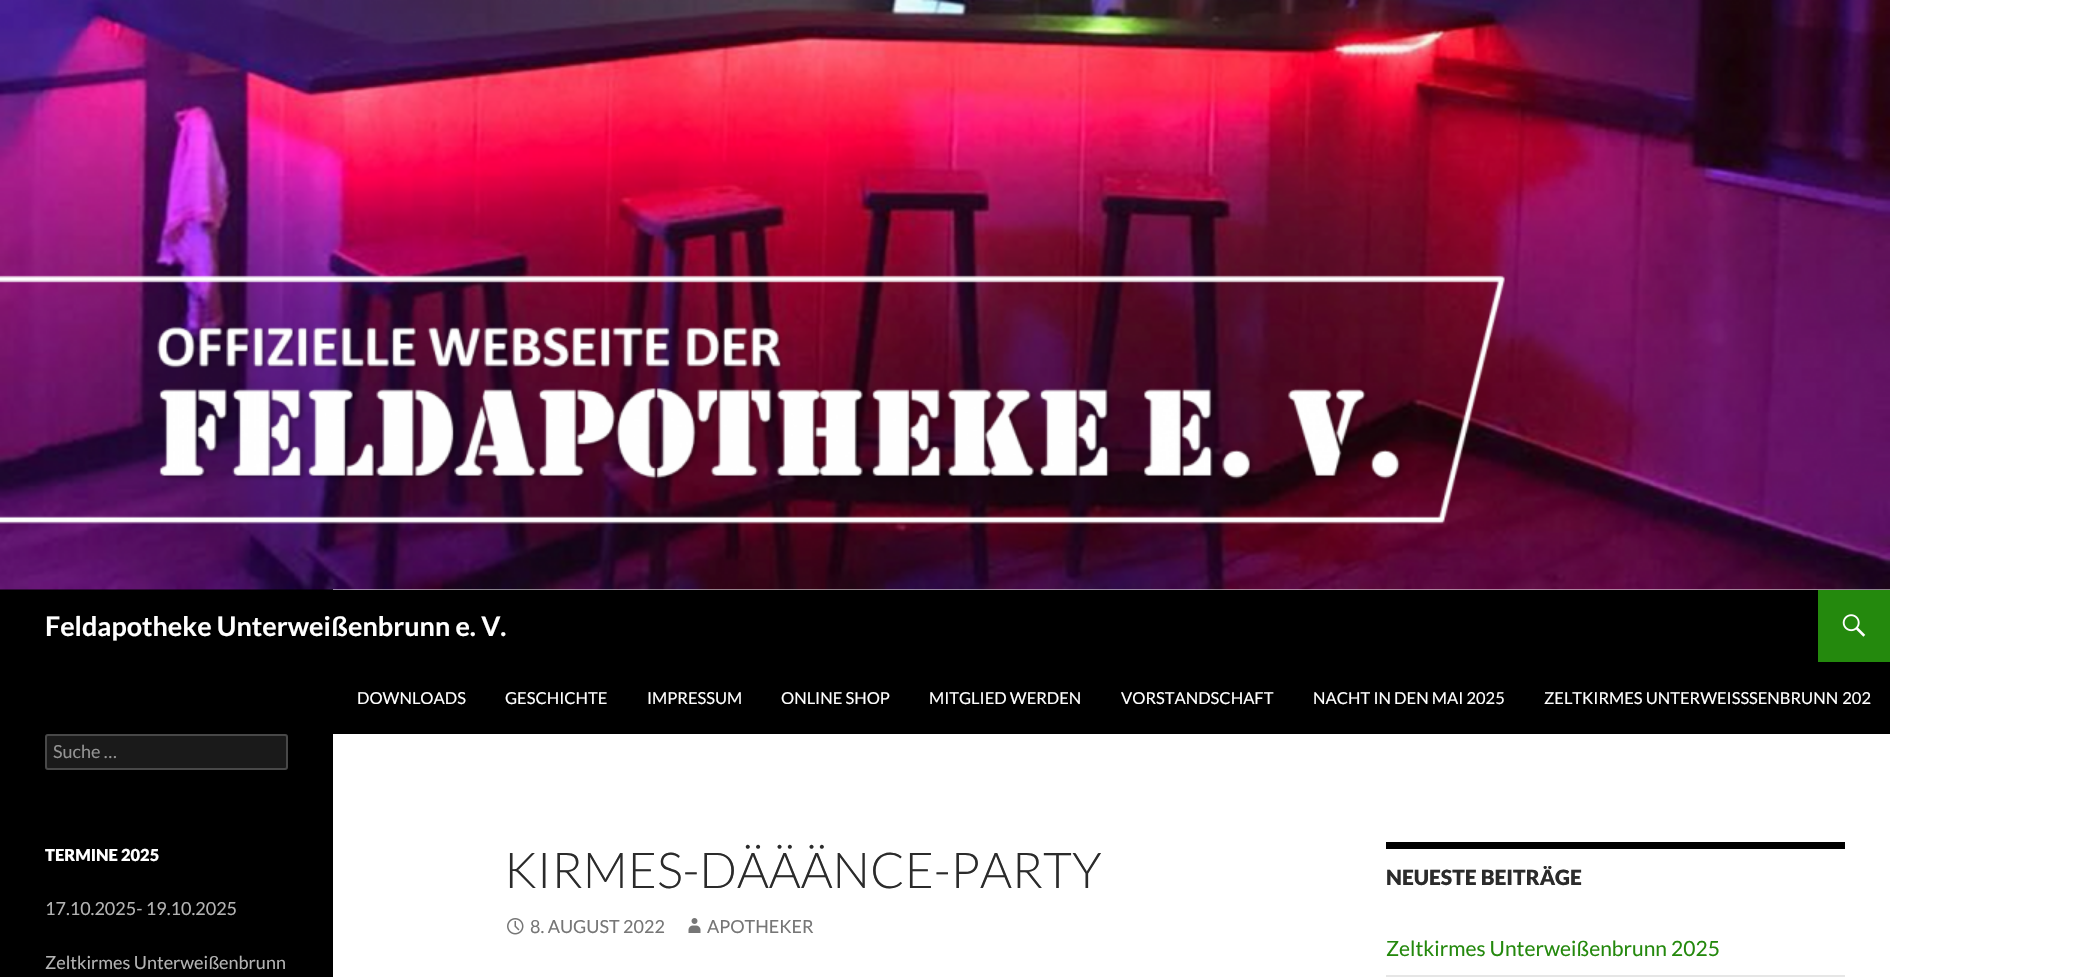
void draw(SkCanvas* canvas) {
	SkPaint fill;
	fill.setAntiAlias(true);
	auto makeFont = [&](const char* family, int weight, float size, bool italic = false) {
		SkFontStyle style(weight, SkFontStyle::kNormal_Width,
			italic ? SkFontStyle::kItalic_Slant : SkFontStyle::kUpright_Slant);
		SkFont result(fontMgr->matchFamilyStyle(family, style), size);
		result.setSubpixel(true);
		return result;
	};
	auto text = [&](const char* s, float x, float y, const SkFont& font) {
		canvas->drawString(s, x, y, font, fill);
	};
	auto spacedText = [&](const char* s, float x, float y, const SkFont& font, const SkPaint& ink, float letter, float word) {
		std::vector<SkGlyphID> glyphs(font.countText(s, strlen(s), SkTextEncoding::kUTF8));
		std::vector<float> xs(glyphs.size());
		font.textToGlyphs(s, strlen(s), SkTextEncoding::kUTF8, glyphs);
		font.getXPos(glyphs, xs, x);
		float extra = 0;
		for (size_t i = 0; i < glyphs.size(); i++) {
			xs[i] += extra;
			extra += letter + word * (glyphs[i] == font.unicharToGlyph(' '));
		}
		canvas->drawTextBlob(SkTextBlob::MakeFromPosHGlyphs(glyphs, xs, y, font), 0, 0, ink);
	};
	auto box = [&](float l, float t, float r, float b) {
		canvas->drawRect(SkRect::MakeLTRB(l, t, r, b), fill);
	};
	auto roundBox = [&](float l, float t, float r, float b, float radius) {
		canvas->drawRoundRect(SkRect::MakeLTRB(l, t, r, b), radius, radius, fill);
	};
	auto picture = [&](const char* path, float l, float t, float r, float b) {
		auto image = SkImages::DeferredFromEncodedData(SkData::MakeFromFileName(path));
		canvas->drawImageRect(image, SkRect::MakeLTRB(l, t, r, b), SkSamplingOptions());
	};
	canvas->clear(0xFFFFFFFF);
	fill.setColor(0xFF000000);
	box(0, 589, 333, 977);
	picture("image0.png", 0, 0, 1890, 590);
	box(333, 590, 1890, 734);
	fill.setColor(0xFF24890D);
	box(1818, 590, 1890, 662);
	picture("image1.png", 1842, 614, 1866, 637);
	fill.setColor(0xFF1A1A1A);
	roundBox(45, 734, 288, 770, 3);
	fill.setStyle(SkPaint::kStroke_Style);
	fill.setStrokeWidth(2);
	fill.setColor(0x33FFFFFF);
	canvas->drawRoundRect(SkRect::MakeLTRB(46, 735, 287, 769), 2, 2, fill);
	picture("image2.png", 507, 918, 524, 935);
	picture("image3.png", 688, 918, 701, 933);
	fill.setStyle(SkPaint::kFill_Style);
	fill.setColor(0xFF000000);
	box(1386, 842, 1845, 849);
	fill.setColor(0xFFE6E6E6);
	box(1386, 975, 1845, 977);
	auto font1 = makeFont("Lato", 700, 27);
	fill.setColor(0xFFFFFFFF);
	text("Feldapotheke Unterweißenbrunn e. V.", 45, 636, font1);
	auto font2 = makeFont("Lato", 400, 16.5f);
	text("DOWNLOADS", 357, 704, font2);
	text("GESCHICHTE", 505, 704, font2);
	text("IMPRESSUM", 647, 704, font2);
	text("ONLINE SHOP", 781, 704, font2);
	text("MITGLIED WERDEN", 929, 704, font2);
	text("VORSTANDSCHAFT", 1121, 704, font2);
	text("NACHT IN DEN MAI 2025", 1313, 704, font2);
	text("ZELTKIRMES UNTERWEISS", 1544, 704, font2);
	spacedText("SENBRUNN 202", 1749, 704, font2, fill, 0, 1);
	auto font3 = makeFont("Lato", 400, 18);
	fill.setColor(0xFF939393);
	text("Suche …", 53, 758, font3);
	auto font4 = makeFont("Lato", 900, 16.5f);
	fill.setColor(0xFFFFFFFF);
	text("TERMINE 2025", 45, 861, font4);
	fill.setColor(0xFFB3B3B3);
	text("17.10.2025- 19.10.2025", 45, 915, font3);
	text("Zeltkirmes Unterweißenbrunn", 45, 969, font3);
	auto font5 = makeFont("Lato", 300, 49.5f);
	fill.setColor(0xFF2B2B2B);
	text("KIRMES-DÄÄÄNCE-PARTY", 504, 888, font5);
	fill.setColor(0xFF767676);
	text("8. AUGUST 2022", 530, 933, font3);
	text("APOTHEKER", 707, 933, font3);
	auto font6 = makeFont("Lato", 900, 21);
	fill.setColor(0xFF2B2B2B);
	text("NEUESTE BEITRÄGE", 1386, 885, font6);
	auto font7 = makeFont("Lato", 400, 21);
	fill.setColor(0xFF24890D);
	text("Zeltkirmes Unterweißenbrunn 2025", 1386, 956, font7);
}
